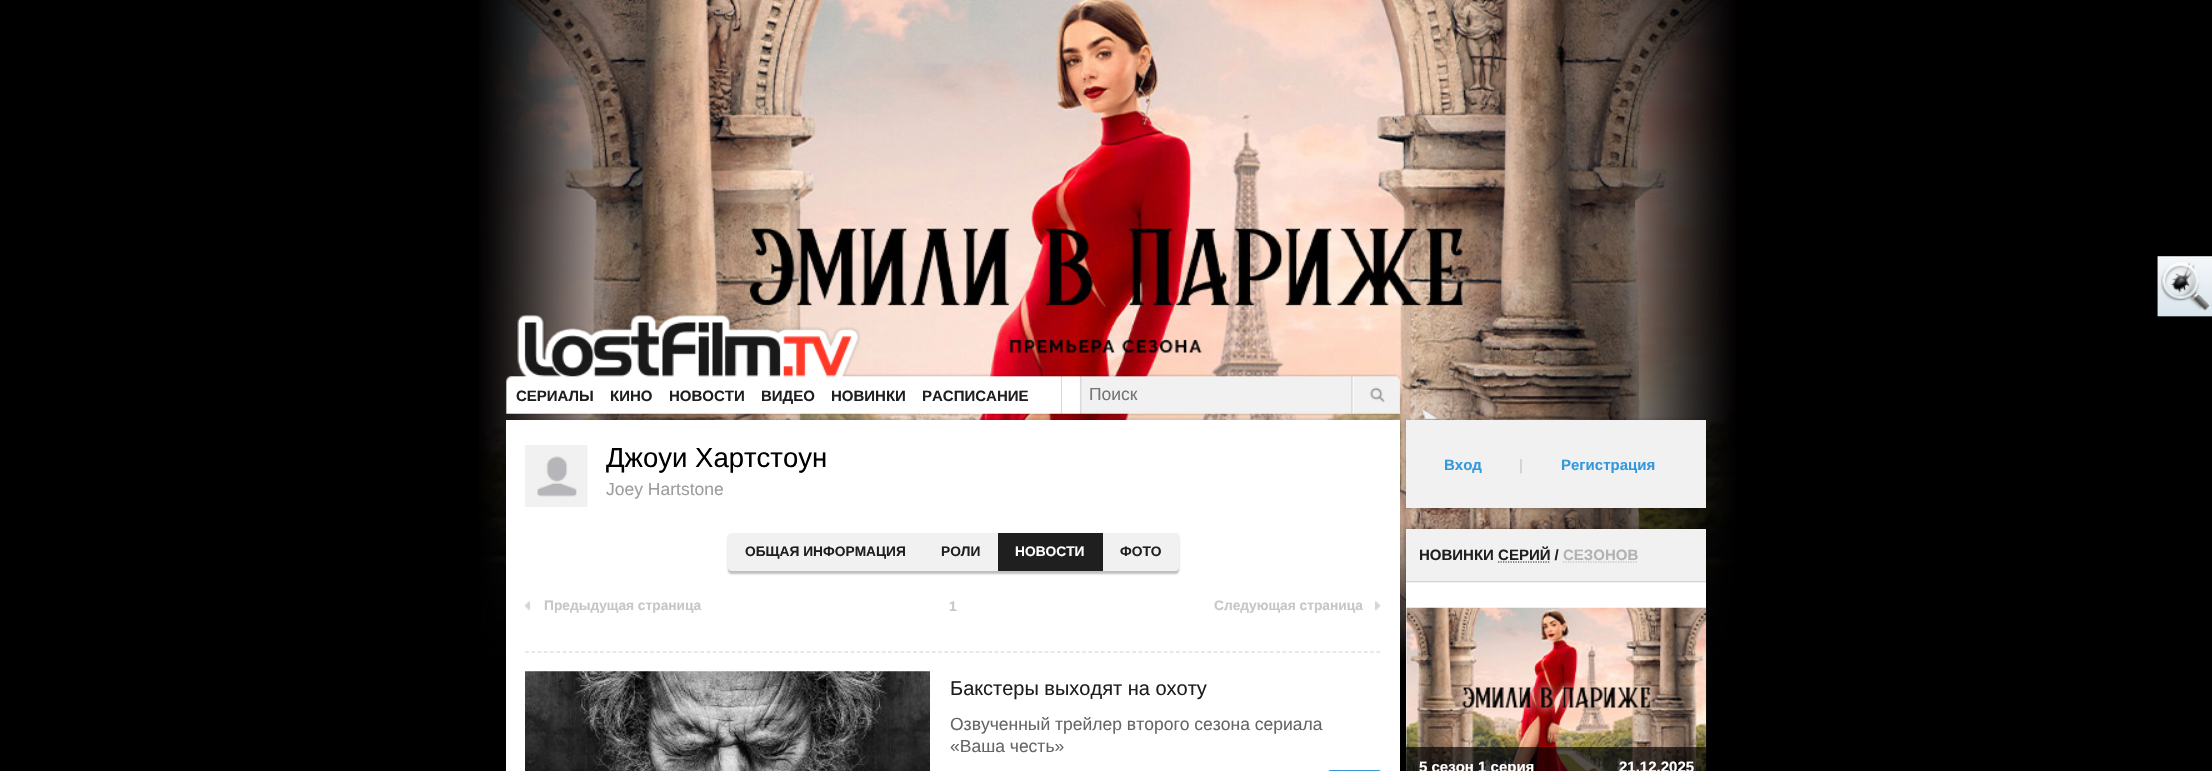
void draw(SkCanvas* canvas) {
	SkPaint fill;
	fill.setAntiAlias(true);
	auto makeFont = [&](const char* family, int weight, float size, bool italic = false) {
		SkFontStyle style(weight, SkFontStyle::kNormal_Width,
			italic ? SkFontStyle::kItalic_Slant : SkFontStyle::kUpright_Slant);
		SkFont result(fontMgr->matchFamilyStyle(family, style), size);
		result.setSubpixel(true);
		return result;
	};
	auto text = [&](const char* s, float x, float y, const SkFont& font) {
		canvas->drawString(s, x, y, font, fill);
	};
	auto box = [&](float l, float t, float r, float b) {
		canvas->drawRect(SkRect::MakeLTRB(l, t, r, b), fill);
	};
	auto roundBox = [&](float l, float t, float r, float b, float radius) {
		canvas->drawRoundRect(SkRect::MakeLTRB(l, t, r, b), radius, radius, fill);
	};
	auto picture = [&](const char* path, float l, float t, float r, float b) {
		auto image = SkImages::DeferredFromEncodedData(SkData::MakeFromFileName(path));
		canvas->drawImageRect(image, SkRect::MakeLTRB(l, t, r, b), SkSamplingOptions());
	};
	canvas->clear(0xFF000000);
	picture("image0.png", 479, 0, 1736, 662);
	picture("image1.png", 2157, 256, 2212, 317);
	picture("image2.png", 506, 313, 1062, 416);
	picture("image3.png", 1061, 374, 1402, 416);
	fill.setColor(0x40000000);
	fill.setMaskFilter(SkMaskFilter::MakeBlur(kNormal_SkBlurStyle, 3));
	canvas->drawRect(SkRect::MakeLTRB(506, 420, 1400, 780), fill);
	fill.setMaskFilter(nullptr);
	fill.setColor(0xFFFFFFFF);
	box(506, 420, 1400, 771);
	picture("image4.png", 525, 445, 588, 507);
	fill.setColor(0x40000000);
	fill.setMaskFilter(SkMaskFilter::MakeBlur(kNormal_SkBlurStyle, 1));
	canvas->drawRoundRect(SkRect::MakeLTRB(728, 535, 1179, 574), 4, 4, fill);
	fill.setMaskFilter(nullptr);
	fill.setColor(0xFFF1F1F1);
	roundBox(728, 533, 1179, 571, 4);
	fill.setColor(0xFF1F1F1F);
	box(998, 533, 1103, 571);
	picture("image5.png", 525, 601, 531, 611);
	picture("image6.png", 1375, 601, 1381, 611);
	fill.setStyle(SkPaint::kStroke_Style);
	fill.setStrokeWidth(1.2f);
	fill.setColor(0xFFD2D2D3);
	fill.setPathEffect(SkDashPathEffect::Make({{3.75f, 2.51f}}, 0));
	canvas->drawPath(SkPathBuilder().moveTo(525, 652).lineTo(1381, 652).detach(), fill);
	fill.setPathEffect(nullptr);
	picture("image7.png", 525, 671, 930, 771);
	fill.setStyle(SkPaint::kFill_Style);
	fill.setColor(0xFF3498DB);
	roundBox(1328, 770, 1381, 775, 4);
	fill.setColor(0x40000000);
	fill.setMaskFilter(SkMaskFilter::MakeBlur(kNormal_SkBlurStyle, 2));
	canvas->drawRect(SkRect::MakeLTRB(1406, 420, 1706, 508), fill);
	fill.setMaskFilter(nullptr);
	fill.setColor(0xFFF1F1F1);
	box(1406, 420, 1706, 508);
	picture("image8.png", 1421, 408, 1438, 419);
	fill.setColor(0x40000000);
	fill.setMaskFilter(SkMaskFilter::MakeBlur(kNormal_SkBlurStyle, 2));
	canvas->drawRect(SkRect::MakeLTRB(1406, 529, 1706, 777), fill);
	fill.setMaskFilter(nullptr);
	fill.setColor(0xFFFFFFFF);
	box(1406, 583, 1706, 771);
	fill.setColor(0xFFF1F1F1);
	box(1406, 529, 1706, 583);
	fill.setColor(0xFFD6D6D7);
	box(1406, 581, 1706, 582);
	fill.setStyle(SkPaint::kStroke_Style);
	fill.setColor(0xFFB2B2B2);
	fill.setPathEffect(SkDashPathEffect::Make({{1.25f, 1.25f}}, 0));
	canvas->drawPath(SkPathBuilder().moveTo(1563, 562).lineTo(1638, 562).detach(), fill);
	fill.setPathEffect(nullptr);
	fill.setColor(0xFF1F1F1F);
	fill.setPathEffect(SkDashPathEffect::Make({{1.25f, 1.25f}}, 0));
	canvas->drawPath(SkPathBuilder().moveTo(1498, 562).lineTo(1550, 562).detach(), fill);
	fill.setPathEffect(nullptr);
	picture("image9.png", 1406, 607, 1707, 771);
	fill.setStyle(SkPaint::kFill_Style);
	fill.setColor(0xA8000000);
	box(1406, 747, 1706, 771);
	auto font1 = makeFont("Liberation Sans", 700, 15);
	fill.setColor(0xFF1F1F1F);
	text("СЕРИАЛЫ", 516, 401, font1);
	text("КИНО", 610, 401, font1);
	text("НОВОСТИ", 669, 401, font1);
	text("ВИДЕО", 761, 401, font1);
	text("НОВИНКИ", 831, 401, font1);
	text("РАСПИСАНИЕ", 922, 401, font1);
	auto font2 = makeFont("Liberation Sans", 400, 17.5f);
	fill.setColor(0xFF757575);
	text("Поиск", 1089, 400, font2);
	auto font3 = makeFont("Liberation Sans", 400, 27.5f);
	fill.setColor(0xFF000000);
	text("Джоуи Хартстоун", 606, 467, font3);
	fill.setColor(0xFF9D9DA0);
	text("Joey Hartstone", 606, 495, font2);
	auto font4 = makeFont("Liberation Sans", 700, 13.75f);
	fill.setColor(0xFF1F1F1F);
	text("ОБЩАЯ ИНФОРМАЦИЯ", 745, 556, font4);
	text("РОЛИ", 941, 556, font4);
	fill.setColor(0xFFFFFFFF);
	text("НОВОСТИ", 1015, 556, font4);
	fill.setColor(0xFF1F1F1F);
	text("ФОТО", 1120, 556, font4);
	fill.setColor(0xFFC7C7C8);
	text("Предыдущая страница", 544, 610, font4);
	text("1", 949, 611, font4);
	text("Следующая страница", 1214, 610, font4);
	auto font5 = makeFont("Liberation Sans", 400, 20);
	fill.setColor(0xFF1F1F1F);
	text("Бакстеры выходят на охоту", 950, 695, font5);
	fill.setColor(0xFF666666);
	text("Озвученный трейлер второго сезона сериала", 950, 730, font2);
	text("«Ваша честь»", 950, 752, font2);
	fill.setColor(0xFF3498DB);
	text("Вход", 1444, 470, font1);
	auto font6 = makeFont("Liberation Sans", 400, 15);
	fill.setColor(0xFFC7C7C8);
	text("|", 1519, 470, font6);
	fill.setColor(0xFF3498DB);
	text("Регистрация", 1561, 470, font1);
	fill.setColor(0xFF1F1F1F);
	text("НОВИНКИ СЕРИЙ /", 1419, 560, font1);
	fill.setColor(0xFFB2B2B2);
	text("СЕЗОНОВ", 1563, 560, font1);
	fill.setColor(0xFFFFFFFF);
	text("5 сезон 1 серия", 1419, 772, font1);
	text("21.12.2025", 1619, 772, font1);
}
